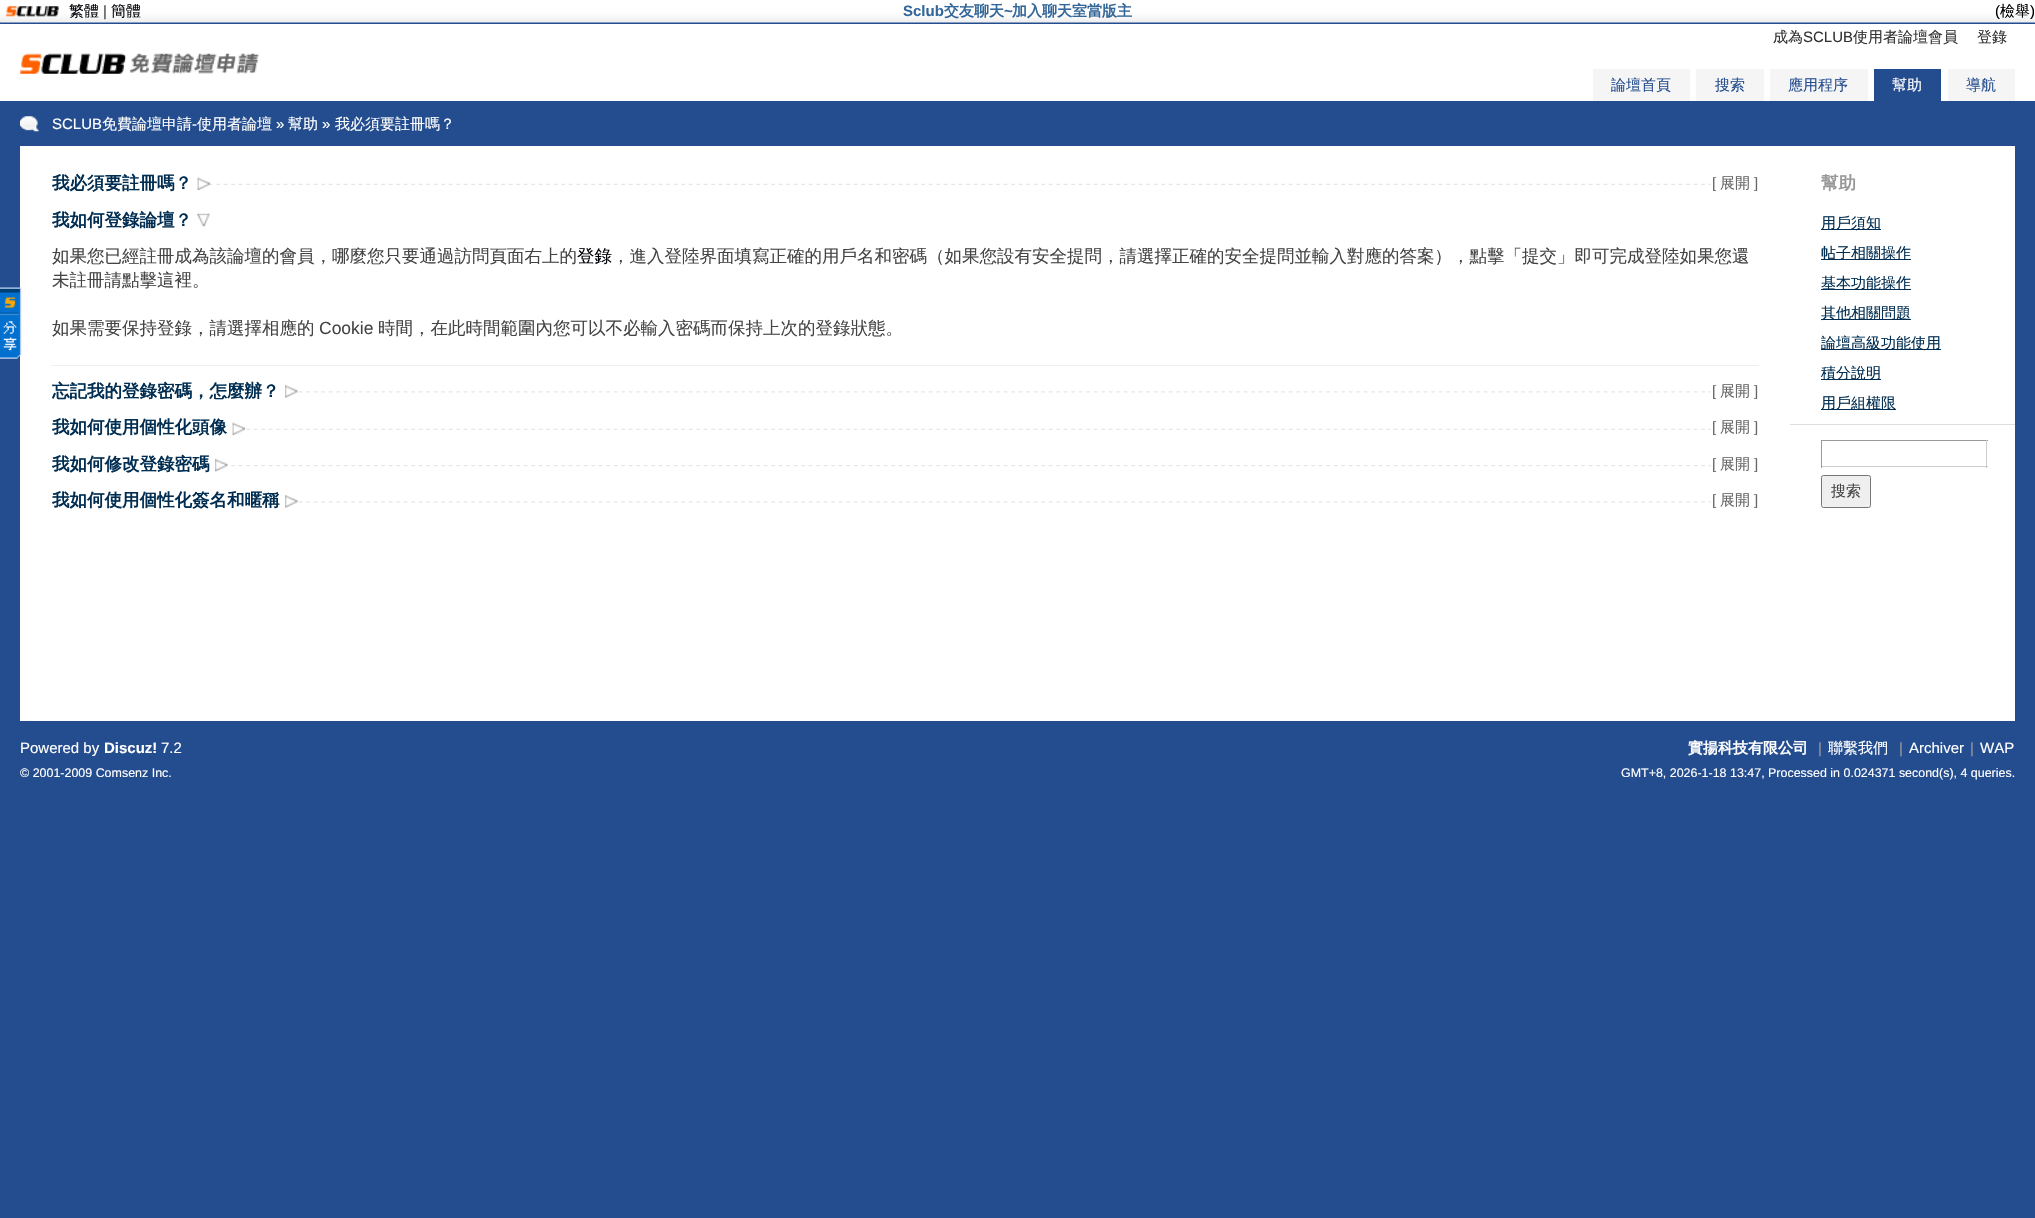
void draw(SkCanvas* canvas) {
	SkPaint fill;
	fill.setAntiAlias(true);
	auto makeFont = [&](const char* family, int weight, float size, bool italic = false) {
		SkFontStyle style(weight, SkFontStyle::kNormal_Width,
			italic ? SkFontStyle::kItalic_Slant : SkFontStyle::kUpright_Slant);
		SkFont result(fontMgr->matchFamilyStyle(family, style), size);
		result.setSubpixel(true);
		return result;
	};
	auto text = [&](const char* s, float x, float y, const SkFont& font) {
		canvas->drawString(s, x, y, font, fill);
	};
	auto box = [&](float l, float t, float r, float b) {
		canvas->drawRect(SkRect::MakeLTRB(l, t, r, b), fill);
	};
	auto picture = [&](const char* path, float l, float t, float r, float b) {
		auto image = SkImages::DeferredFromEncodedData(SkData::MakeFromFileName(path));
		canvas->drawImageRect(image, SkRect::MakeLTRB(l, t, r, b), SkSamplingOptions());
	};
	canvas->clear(0xFF244D8F);
	picture("image0.png", 0, 0, 2035, 23);
	picture("image1.png", 6, 6, 59, 17);
	fill.setColor(0xFFFFFFFF);
	box(0, 24, 2035, 101);
	picture("image2.png", 20, 53, 259, 74);
	fill.setColor(0xFFF5F5F5);
	box(1593, 69, 1690, 101);
	box(1696, 69, 1764, 101);
	box(1770, 69, 1868, 101);
	fill.setColor(0xFF244D8F);
	box(1875, 70, 1940, 101);
	box(1874, 69, 1941, 70);
	box(1940, 69, 1941, 103);
	box(1874, 69, 1875, 103);
	fill.setColor(0xFFF5F5F5);
	box(1948, 69, 2015, 101);
	picture("image3.png", 20, 116, 39, 132);
	fill.setColor(0xFFFFFFFF);
	box(20, 146, 2015, 721);
	picture("image4.png", 0, 287, 22, 359);
	picture("image5.png", 210, 183, 1711, 185);
	picture("image6.png", 197, 177, 210, 190);
	picture("image7.png", 197, 213, 210, 227);
	fill.setColor(0xFFEFEFEF);
	box(51, 365, 1759, 366);
	picture("image8.png", 298, 391, 1711, 393);
	picture("image9.png", 285, 385, 298, 398);
	picture("image10.png", 246, 428, 1711, 430);
	picture("image6.png", 232, 422, 245, 435);
	picture("image11.png", 231, 465, 1711, 467);
	picture("image12.png", 215, 458, 228, 472);
	picture("image8.png", 298, 501, 1711, 503);
	picture("image9.png", 285, 495, 298, 508);
	fill.setColor(0xFF002D51);
	box(1821, 229, 1881, 230);
	box(1821, 259, 1911, 260);
	box(1821, 289, 1911, 290);
	box(1821, 319, 1911, 320);
	box(1821, 349, 1941, 350);
	box(1821, 379, 1881, 380);
	box(1821, 409, 1896, 410);
	fill.setColor(0xFFDDDDDD);
	box(1790, 424, 2015, 425);
	fill.setColor(0xFF999999);
	box(1821, 440, 1988, 441);
	fill.setColor(0xFFCCCCCC);
	box(1986, 440, 1987, 468);
	box(1821, 466, 1988, 467);
	fill.setColor(0xFF999999);
	box(1821, 440, 1822, 468);
	fill.setColor(0xFFEFEFEF);
	canvas->drawRoundRect(SkRect::MakeLTRB(1821.5f, 475.5f, 1870.5f, 507.5f), 2, 2, fill);
	fill.setStyle(SkPaint::kStroke_Style);
	fill.setStrokeWidth(1);
	fill.setColor(0xFF767676);
	canvas->drawRoundRect(SkRect::MakeLTRB(1821.5f, 475.5f, 1870.5f, 507.5f), 2, 2, fill);
	auto font1 = makeFont("WenQuanYi Zen Hei", 500, 15);
	fill.setStyle(SkPaint::kFill_Style);
	fill.setColor(0xFF000106);
	text("繁體", 69, 16, font1);
	auto font2 = makeFont("Liberation Sans", 400, 15);
	fill.setColor(0xFF444444);
	text("|", 103, 16, font2);
	fill.setColor(0xFF000106);
	text("簡體", 111, 16, font1);
	auto font3 = makeFont("Liberation Sans", 700, 15);
	fill.setColor(0xFF336699);
	text("Sclub", 903, 16, font3);
	auto font4 = makeFont("WenQuanYi Zen Hei", 700, 15);
	text("交友聊天", 944, 16, font4);
	text("~", 1004, 16, font3);
	text("加入聊天室當版主", 1012, 16, font4);
	fill.setColor(0xFF000000);
	text("(", 1995, 16, font2);
	text("檢舉", 2000, 16, font1);
	text(")", 2030, 16, font2);
	fill.setColor(0xFF333333);
	text("成為", 1773, 42, font1);
	text("SCLUB", 1803, 42, font2);
	text("使用者論壇會員", 1853, 42, font1);
	text("登錄", 1977, 42, font1);
	fill.setColor(0xFF244D8F);
	text("論壇首頁", 1611, 90, font1);
	text("搜索", 1715, 90, font1);
	text("應用程序", 1788, 90, font1);
	fill.setColor(0xFFFFFFFF);
	text("幫助", 1892, 90, font1);
	fill.setColor(0xFF244D8F);
	text("導航", 1966, 90, font1);
	fill.setColor(0xFFFFFFFF);
	text("SCLUB", 52, 129, font2);
	text("免費論壇申請", 102, 129, font1);
	text("-", 192, 129, font2);
	text("使用者論壇", 197, 129, font1);
	text("»", 276, 129, font2);
	text("幫助", 288, 129, font1);
	text("»", 322, 129, font2);
	text("我必須要註冊嗎？", 335, 129, font1);
	auto font5 = makeFont("WenQuanYi Zen Hei", 700, 17.5f);
	fill.setColor(0xFF002D51);
	text("我必須要註冊嗎？", 52, 189, font5);
	fill.setColor(0xFF666666);
	text("[", 1712, 188, font2);
	text("展開", 1720, 188, font1);
	text("]", 1754, 188, font2);
	fill.setColor(0xFF002D51);
	text("我如何登錄論壇？", 52, 226, font5);
	auto font6 = makeFont("WenQuanYi Zen Hei", 500, 17.5f);
	fill.setColor(0xFF444444);
	text("如果您已經註冊成為該論壇的會員，哪麼您只要通過訪問頁面右上的", 52, 262, font6);
	fill.setColor(0xFF000106);
	text("登錄", 577, 262, font6);
	fill.setColor(0xFF444444);
	text("，進入登陸界面填寫正確的用戶名和密碼（如果您設有安全提問，請選擇正確的安全提問並輸入對應的答案），點擊「提交」即可完成登陸如果您還", 612, 262, font6);
	text("未註冊請點擊這裡。", 52, 286, font6);
	text("如果需要保持登錄，請選擇相應的", 52, 334, font6);
	auto font7 = makeFont("Liberation Sans", 400, 17.5f);
	text("Cookie", 319, 334, font7);
	text("時間，在此時間範圍內您可以不必輸入密碼而保持上次的登錄狀態。", 378, 334, font6);
	fill.setColor(0xFF002D51);
	text("忘記我的登錄密碼，怎麼辦？", 52, 397, font5);
	fill.setColor(0xFF666666);
	text("[", 1712, 396, font2);
	text("展開", 1720, 396, font1);
	text("]", 1754, 396, font2);
	fill.setColor(0xFF002D51);
	text("我如何使用個性化頭像", 52, 433, font5);
	fill.setColor(0xFF666666);
	text("[", 1712, 432, font2);
	text("展開", 1720, 432, font1);
	text("]", 1754, 432, font2);
	fill.setColor(0xFF002D51);
	text("我如何修改登錄密碼", 52, 470, font5);
	fill.setColor(0xFF666666);
	text("[", 1712, 469, font2);
	text("展開", 1720, 469, font1);
	text("]", 1754, 469, font2);
	fill.setColor(0xFF002D51);
	text("我如何使用個性化簽名和暱稱", 52, 506, font5);
	fill.setColor(0xFF666666);
	text("[", 1712, 505, font2);
	text("展開", 1720, 505, font1);
	text("]", 1754, 505, font2);
	fill.setColor(0xFF999999);
	text("幫助", 1821, 189, font5);
	fill.setColor(0xFF002D51);
	text("用戶須知", 1821, 228, font1);
	text("帖子相關操作", 1821, 258, font1);
	text("基本功能操作", 1821, 288, font1);
	text("其他相關問題", 1821, 318, font1);
	text("論壇高級功能使用", 1821, 348, font1);
	text("積分說明", 1821, 378, font1);
	text("用戶組權限", 1821, 408, font1);
	fill.setColor(0xFF444444);
	text("搜索", 1831, 496, font1);
	fill.setColor(0xFFFFFFFF);
	text("Powered by", 20, 753, font2);
	text("Discuz!", 104, 753, font3);
	text("7.2", 161, 753, font2);
	auto font8 = makeFont("Liberation Sans", 400, 12.45f);
	text("© 2001-2009 Comsenz Inc.", 20, 777, font8);
	text("實揚科技有限公司", 1688, 753, font4);
	fill.setColor(0xFF999999);
	text("|", 1818, 753, font2);
	fill.setColor(0xFFFFFFFF);
	text("聯繫我們", 1828, 753, font1);
	fill.setColor(0xFF999999);
	text("|", 1899, 753, font2);
	fill.setColor(0xFFFFFFFF);
	text("Archiver", 1909, 753, font2);
	fill.setColor(0xFF999999);
	text("|", 1970, 753, font2);
	fill.setColor(0xFFFFFFFF);
	text("WAP", 1980, 753, font2);
	text("GMT+8, 2026-1-18 13:47, Processed in 0.024371 second(s), 4 queries.", 1621, 777, font8);
}
